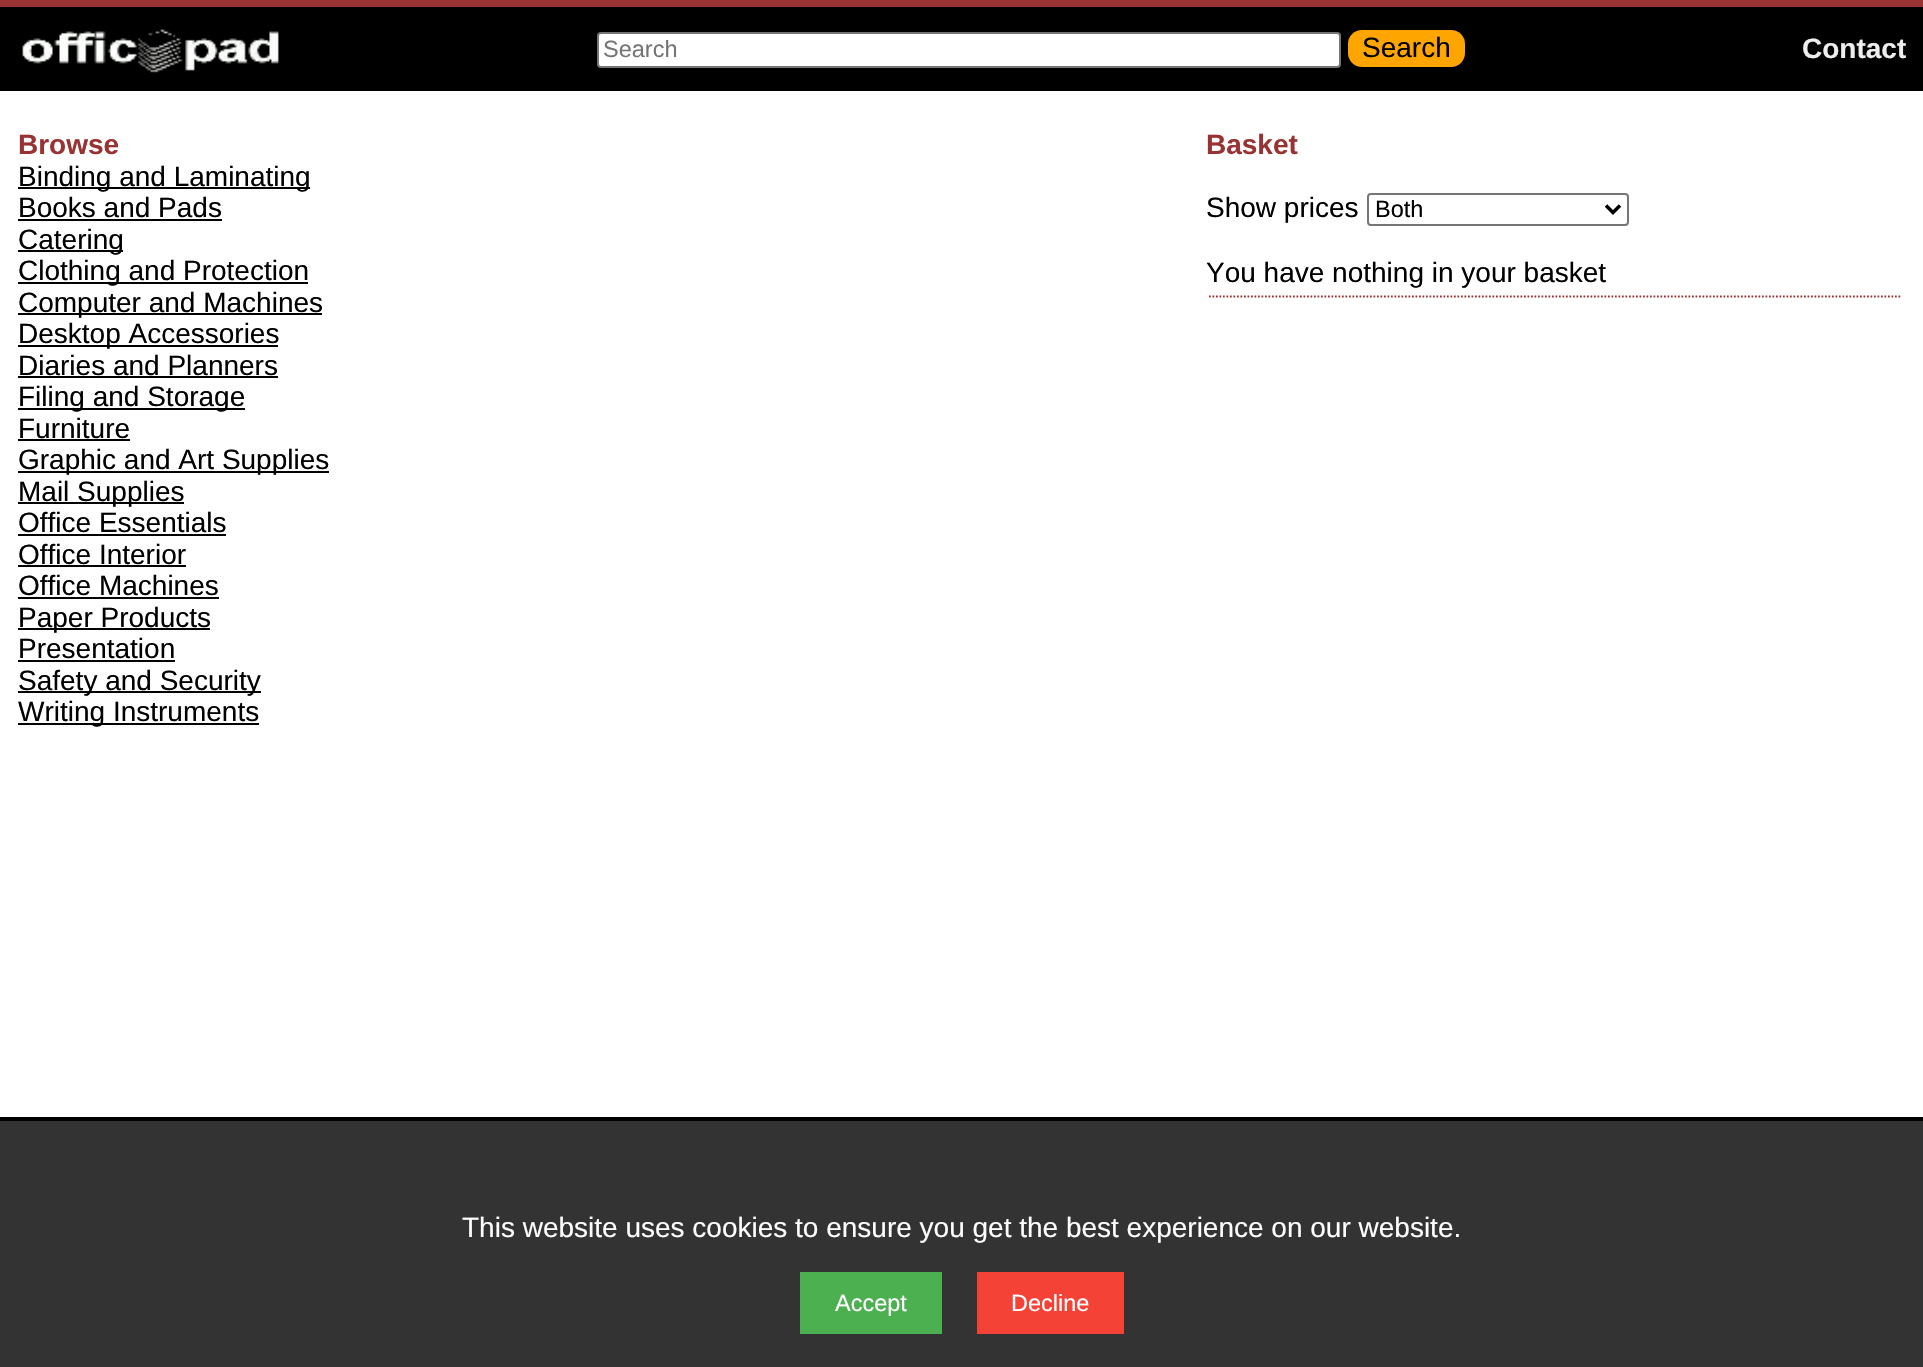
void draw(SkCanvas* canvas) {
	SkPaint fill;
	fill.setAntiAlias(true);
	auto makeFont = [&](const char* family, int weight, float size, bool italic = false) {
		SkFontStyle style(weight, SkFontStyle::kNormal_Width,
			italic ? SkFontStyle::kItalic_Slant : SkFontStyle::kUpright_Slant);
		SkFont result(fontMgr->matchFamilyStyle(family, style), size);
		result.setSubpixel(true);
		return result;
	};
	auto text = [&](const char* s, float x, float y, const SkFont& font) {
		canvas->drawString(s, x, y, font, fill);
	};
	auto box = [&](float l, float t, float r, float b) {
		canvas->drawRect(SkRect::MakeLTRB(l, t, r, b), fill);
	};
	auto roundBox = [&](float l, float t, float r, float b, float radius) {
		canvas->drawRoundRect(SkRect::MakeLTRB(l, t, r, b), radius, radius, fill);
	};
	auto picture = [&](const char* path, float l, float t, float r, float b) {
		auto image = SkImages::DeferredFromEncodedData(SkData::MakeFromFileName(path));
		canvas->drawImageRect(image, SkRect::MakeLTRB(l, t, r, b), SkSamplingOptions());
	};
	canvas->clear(0xFFFFFFFF);
	fill.setColor(0xFF000000);
	box(0, 7, 1923, 91);
	fill.setColor(0xFF993333);
	box(0, 0, 1923, 7);
	picture("image0.png", 22, 29, 279, 73);
	fill.setColor(0xFFFFFFFF);
	canvas->drawRoundRect(SkRect::MakeLTRB(598, 33, 1340, 67), 3, 3, fill);
	fill.setStyle(SkPaint::kStroke_Style);
	fill.setStrokeWidth(2);
	fill.setColor(0xFF767676);
	canvas->drawRoundRect(SkRect::MakeLTRB(598, 33, 1340, 67), 3, 3, fill);
	fill.setStyle(SkPaint::kFill_Style);
	fill.setColor(0xFFFFA500);
	roundBox(1348, 30, 1465, 67, 14);
	fill.setColor(0xFF000000);
	box(18, 187, 310, 189);
	box(18, 219, 222, 221);
	box(18, 250, 123, 252);
	box(18, 282, 308, 284);
	box(18, 313, 322, 315);
	box(18, 345, 278, 347);
	box(18, 376, 278, 378);
	box(18, 408, 245, 410);
	box(18, 439, 130, 441);
	box(18, 471, 329, 473);
	box(18, 502, 184, 504);
	box(18, 534, 226, 536);
	box(18, 565, 186, 567);
	box(18, 597, 219, 599);
	box(18, 628, 210, 630);
	box(18, 660, 175, 662);
	box(18, 691, 261, 693);
	box(18, 723, 259, 725);
	fill.setStyle(SkPaint::kStroke_Style);
	fill.setColor(0xFF767676);
	canvas->drawRoundRect(SkRect::MakeLTRB(1368, 194, 1628, 225), 3, 3, fill);
	fill.setStrokeWidth(3.5f);
	fill.setColor(0xFF000000);
	canvas->drawPath(SkPathBuilder().moveTo(1606, 205.5f).lineTo(1613, 212.5f).lineTo(1620, 205.5f).detach(), fill);
	fill.setStrokeWidth(1.8f);
	fill.setColor(0xFF993333);
	fill.setPathEffect(SkDashPathEffect::Make({{1.75f, 1.75f}}, 0));
	canvas->drawPath(SkPathBuilder().moveTo(1209, 296.5f).lineTo(1902, 296.5f).detach(), fill);
	fill.setPathEffect(nullptr);
	fill.setStyle(SkPaint::kFill_Style);
	fill.setColor(0xFF333333);
	box(0, 1121, 1923, 1367);
	fill.setColor(0xFF000000);
	box(0, 1117, 1923, 1121);
	fill.setColor(0xFF4CAF50);
	box(800, 1272, 942, 1334);
	fill.setColor(0xFFF44336);
	box(977, 1272, 1124, 1334);
	auto font1 = makeFont("Liberation Sans", 400, 23.5f);
	fill.setColor(0xFF757575);
	text("Search", 603, 57, font1);
	auto font2 = makeFont("Liberation Sans", 400, 28);
	fill.setColor(0xFF000000);
	text("Search", 1362, 57, font2);
	auto font3 = makeFont("Liberation Sans", 700, 28);
	fill.setColor(0xFFEEEEEE);
	text("Contact", 1802, 58, font3);
	fill.setColor(0xFF993333);
	text("Browse", 18, 154, font3);
	fill.setColor(0xFF000000);
	text("Binding and Laminating", 18, 186, font2);
	text("Books and Pads", 18, 217, font2);
	text("Catering", 18, 249, font2);
	text("Clothing and Protection", 18, 280, font2);
	text("Computer and Machines", 18, 312, font2);
	text("Desktop Accessories", 18, 343, font2);
	text("Diaries and Planners", 18, 375, font2);
	text("Filing and Storage", 18, 406, font2);
	text("Furniture", 18, 438, font2);
	text("Graphic and Art Supplies", 18, 469, font2);
	text("Mail Supplies", 18, 501, font2);
	text("Office Essentials", 18, 532, font2);
	text("Office Interior", 18, 564, font2);
	text("Office Machines", 18, 595, font2);
	text("Paper Products", 18, 627, font2);
	text("Presentation", 18, 658, font2);
	text("Safety and Security", 18, 690, font2);
	text("Writing Instruments", 18, 721, font2);
	fill.setColor(0xFF993333);
	text("Basket", 1206, 154, font3);
	fill.setColor(0xFF000000);
	text("Show prices", 1206, 217, font2);
	text("Both", 1375, 217, font1);
	text("You have nothing in your basket", 1206, 282, font2);
	fill.setColor(0xFFFFFFFF);
	text("This website uses cookies to ensure you get the best experience on our website.", 462, 1237, font2);
	text("Accept", 835, 1311, font1);
	text("Decline", 1011, 1311, font1);
}
